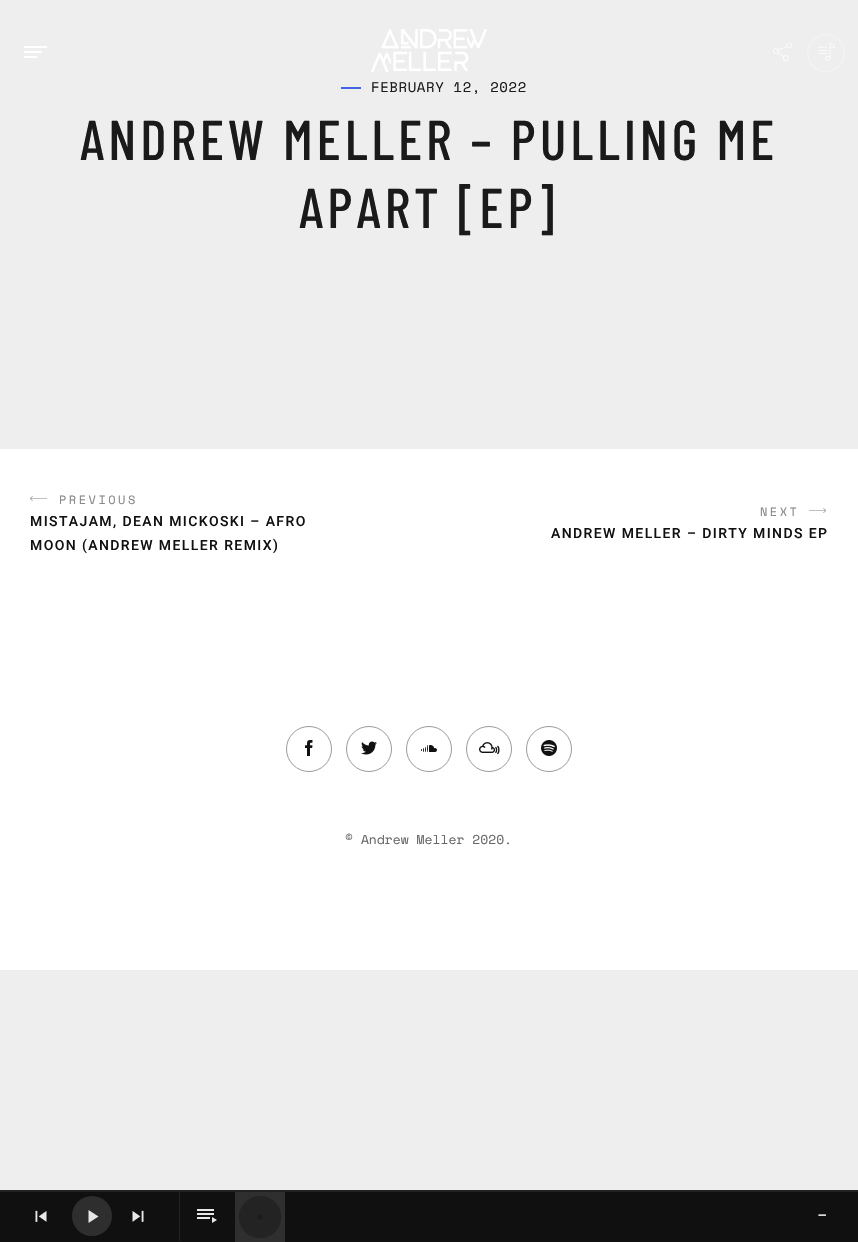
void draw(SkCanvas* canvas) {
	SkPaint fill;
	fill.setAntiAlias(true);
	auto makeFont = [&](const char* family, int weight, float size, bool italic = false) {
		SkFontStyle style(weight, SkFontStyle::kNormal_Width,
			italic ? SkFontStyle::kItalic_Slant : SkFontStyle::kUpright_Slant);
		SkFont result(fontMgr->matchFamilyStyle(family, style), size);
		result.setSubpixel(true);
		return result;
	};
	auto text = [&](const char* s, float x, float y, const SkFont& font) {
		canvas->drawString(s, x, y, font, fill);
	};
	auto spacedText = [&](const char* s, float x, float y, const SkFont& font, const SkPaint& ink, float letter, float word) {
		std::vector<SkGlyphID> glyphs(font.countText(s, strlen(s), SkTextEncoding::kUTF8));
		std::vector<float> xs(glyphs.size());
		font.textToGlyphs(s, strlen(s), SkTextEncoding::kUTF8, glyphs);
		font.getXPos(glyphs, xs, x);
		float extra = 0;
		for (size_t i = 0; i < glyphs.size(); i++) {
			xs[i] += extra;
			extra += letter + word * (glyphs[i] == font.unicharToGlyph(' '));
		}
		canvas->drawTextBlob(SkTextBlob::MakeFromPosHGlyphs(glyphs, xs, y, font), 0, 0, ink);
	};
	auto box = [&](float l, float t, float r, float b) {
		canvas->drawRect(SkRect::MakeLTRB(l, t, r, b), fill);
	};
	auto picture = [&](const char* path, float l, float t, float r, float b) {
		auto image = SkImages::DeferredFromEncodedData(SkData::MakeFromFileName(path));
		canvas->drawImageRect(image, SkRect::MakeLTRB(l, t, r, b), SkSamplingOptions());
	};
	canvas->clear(0xFFEEEEEE);
	picture("image0.png", 371, 29, 487, 72);
	fill.setColor(0xFFFFFFFF);
	box(24, 51, 42, 53);
	box(24, 46, 47, 48);
	box(24, 56, 37, 58);
	picture("image1.png", 773, 43, 792, 61);
	fill.setStyle(SkPaint::kStroke_Style);
	fill.setStrokeWidth(1.6f);
	fill.setColor(0xFFF3F3F3);
	canvas->drawPath(SkPathBuilder().moveTo(807.5f, 53).cubicTo(807.5f, 43, 816, 34.5f, 826, 34.5f).cubicTo(836, 34.5f, 844.5f, 43, 844.5f, 53).cubicTo(844.5f, 63, 836, 71.5f, 826, 71.5f).cubicTo(816, 71.5f, 808, 63.5f, 807.5f, 53.5f).detach(), fill);
	picture("image2.png", 818, 43, 835, 61);
	fill.setStyle(SkPaint::kFill_Style);
	fill.setColor(0xFF4063E6);
	box(341, 87, 361, 89);
	fill.setColor(0xFFFFFFFF);
	box(0, 449, 858, 970);
	picture("image3.png", 30, 496, 47, 501);
	picture("image4.png", 809, 508, 826, 513);
	fill.setStyle(SkPaint::kStroke_Style);
	fill.setStrokeWidth(1);
	fill.setColor(0xFF999999);
	canvas->drawCircle(309, 749, 22.5f, fill);
	picture("image5.png", 305, 740, 313, 756);
	canvas->drawCircle(369, 749, 22.5f, fill);
	picture("image6.png", 361, 741, 377, 755);
	canvas->drawCircle(429, 749, 22.5f, fill);
	picture("image7.png", 421, 745, 437, 752);
	canvas->drawCircle(489, 749, 22.5f, fill);
	picture("image8.png", 479, 742, 500, 755);
	canvas->drawCircle(549, 749, 22.5f, fill);
	picture("image9.png", 541, 740, 557, 756);
	fill.setStyle(SkPaint::kFill_Style);
	fill.setColor(0xFF101010);
	box(0, 1192, 858, 1242);
	fill.setColor(0xFF222222);
	box(0, 1190, 858, 1192);
	picture("image10.png", 35, 1210, 47, 1222);
	fill.setColor(0xFF2E2E2E);
	canvas->drawCircle(92, 1216, 20, fill);
	fill.setColor(0xFFE7E7E7);
	canvas->drawPath(SkPathBuilder().moveTo(88.5f, 1210).lineTo(88.5f, 1223).lineTo(98.5f, 1216.5f).close().detach(), fill);
	picture("image11.png", 132, 1210, 144, 1222);
	fill.setColor(0xFF222222);
	box(179, 1192, 180, 1241);
	picture("image12.png", 197, 1209, 217, 1223);
	picture("image13.png", 235, 1192, 285, 1242);
	auto font1 = makeFont("Space Mono", 400, 14);
	fill.setColor(0xFF1A1A1A);
	spacedText("FEBRUARY 12, 2022", 371, 92, font1, fill, 0.6f, 0);
	auto font2 = makeFont("Barlow Condensed", 500, 56);
	spacedText("ANDREW MELLER – PULLING ME", 80, 160, font2, fill, 3.9f, 0);
	spacedText("APART [EP]", 299, 228, font2, fill, 3.9f, 0);
	auto font3 = makeFont("Space Mono", 400, 12);
	fill.setColor(0xFF888888);
	spacedText("PREVIOUS", 59, 504, font3, fill, 2.5f, 0);
	auto font4 = makeFont("Roboto", 500, 14);
	fill.setColor(0xFF111111);
	spacedText("MISTAJAM, DEAN MICKOSKI – AFRO", 30, 526, font4, fill, 1.4f, 0);
	spacedText("MOON (ANDREW MELLER REMIX)", 30, 550, font4, fill, 1.4f, 0);
	fill.setColor(0xFF888888);
	spacedText("NEXT", 760, 516, font3, fill, 2.5f, 0);
	fill.setColor(0xFF111111);
	spacedText("ANDREW MELLER – DIRTY MINDS EP", 551, 538, font4, fill, 1.4f, 0);
	auto font5 = makeFont("Space Mono", 400, 13);
	fill.setColor(0xFF666666);
	text("© Andrew Meller 2020.", 345, 844, font5);
	auto font6 = makeFont("Roboto", 700, 11);
	fill.setColor(0xFFFFFFFF);
	text("—", 818, 1219, font6);
}
